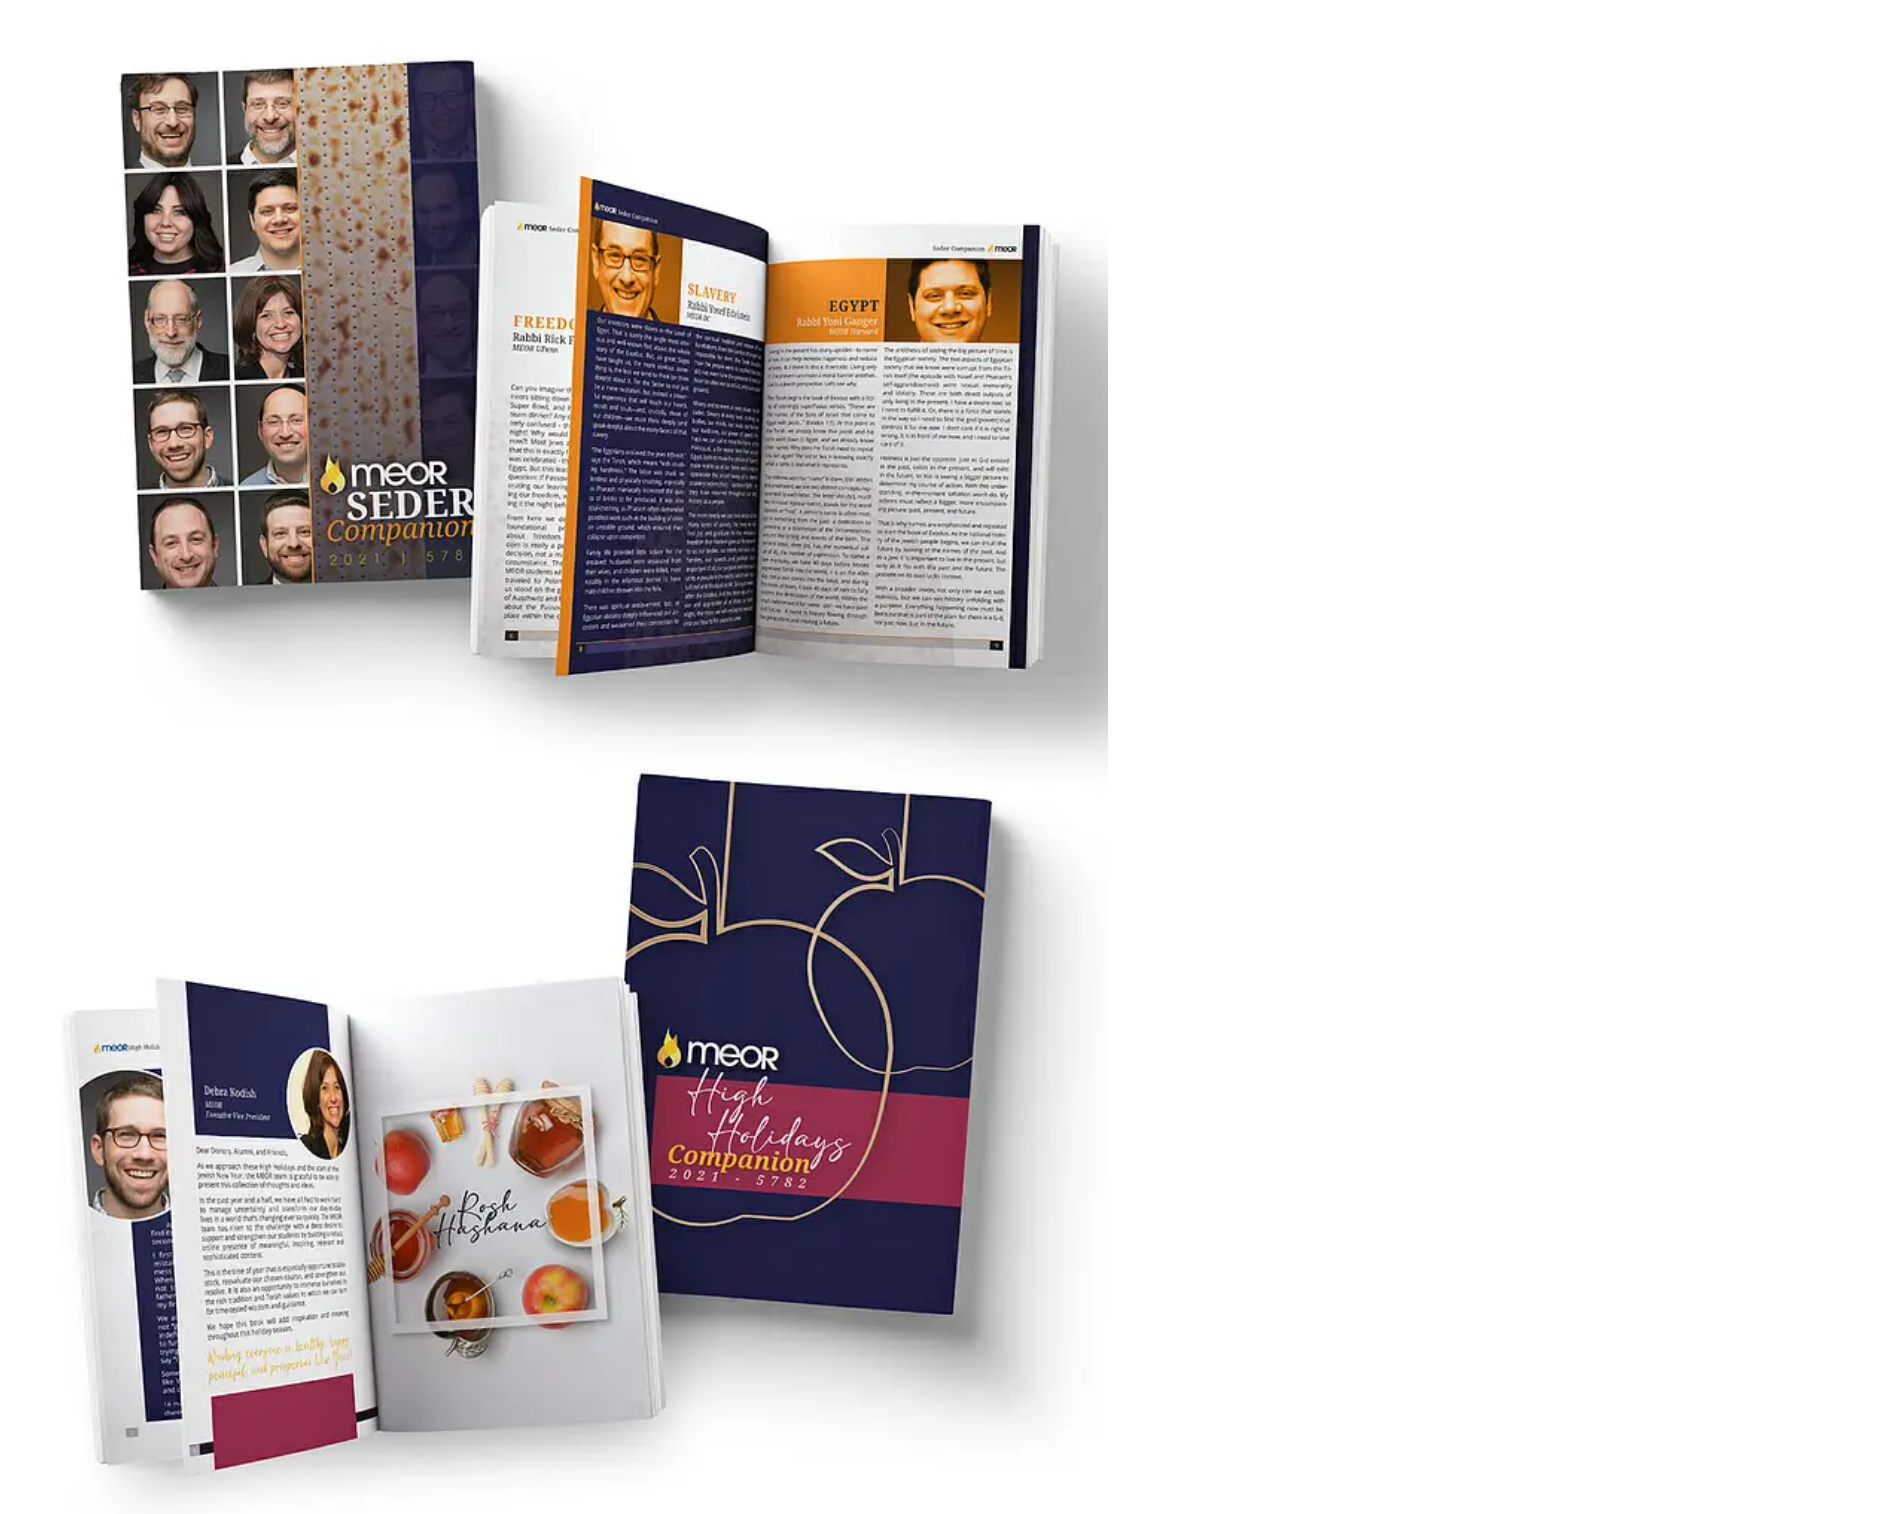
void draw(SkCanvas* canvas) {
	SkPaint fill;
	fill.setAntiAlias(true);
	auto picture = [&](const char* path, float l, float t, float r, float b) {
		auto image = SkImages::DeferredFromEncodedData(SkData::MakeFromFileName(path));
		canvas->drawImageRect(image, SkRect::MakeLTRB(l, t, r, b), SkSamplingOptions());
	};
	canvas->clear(0xFFFFFFFF);
	picture("image0.png", 61, 55, 1108, 1514);
}
